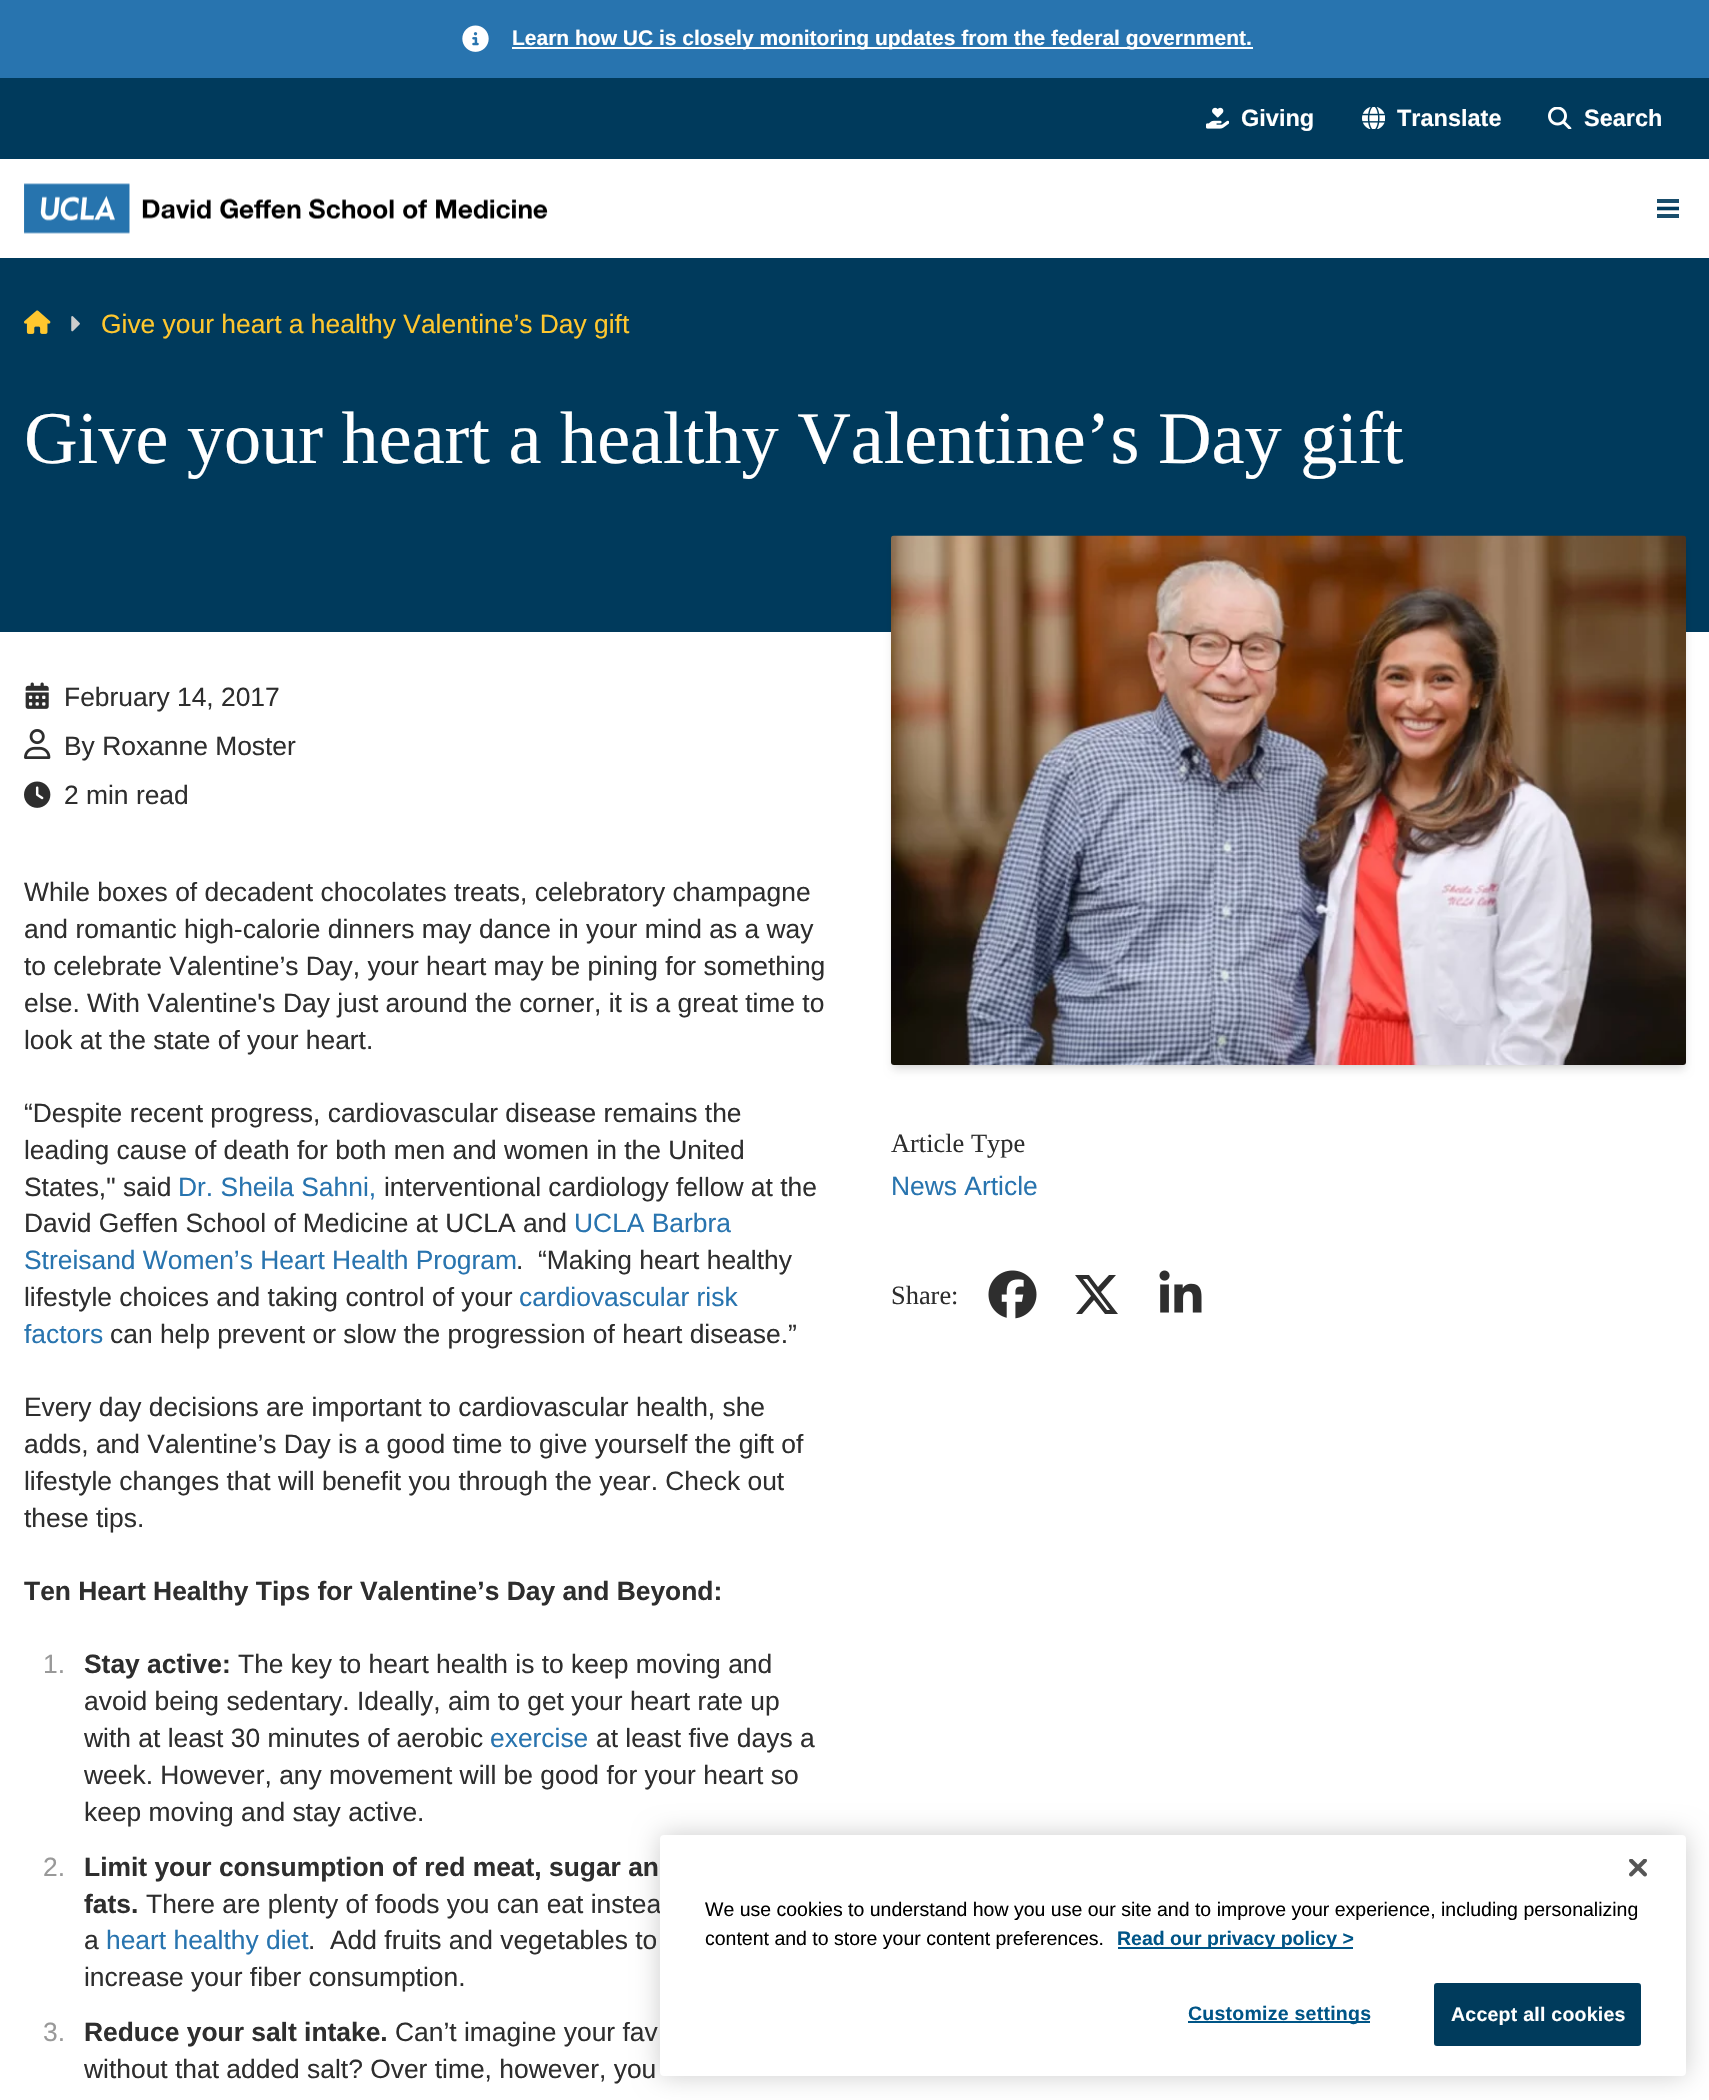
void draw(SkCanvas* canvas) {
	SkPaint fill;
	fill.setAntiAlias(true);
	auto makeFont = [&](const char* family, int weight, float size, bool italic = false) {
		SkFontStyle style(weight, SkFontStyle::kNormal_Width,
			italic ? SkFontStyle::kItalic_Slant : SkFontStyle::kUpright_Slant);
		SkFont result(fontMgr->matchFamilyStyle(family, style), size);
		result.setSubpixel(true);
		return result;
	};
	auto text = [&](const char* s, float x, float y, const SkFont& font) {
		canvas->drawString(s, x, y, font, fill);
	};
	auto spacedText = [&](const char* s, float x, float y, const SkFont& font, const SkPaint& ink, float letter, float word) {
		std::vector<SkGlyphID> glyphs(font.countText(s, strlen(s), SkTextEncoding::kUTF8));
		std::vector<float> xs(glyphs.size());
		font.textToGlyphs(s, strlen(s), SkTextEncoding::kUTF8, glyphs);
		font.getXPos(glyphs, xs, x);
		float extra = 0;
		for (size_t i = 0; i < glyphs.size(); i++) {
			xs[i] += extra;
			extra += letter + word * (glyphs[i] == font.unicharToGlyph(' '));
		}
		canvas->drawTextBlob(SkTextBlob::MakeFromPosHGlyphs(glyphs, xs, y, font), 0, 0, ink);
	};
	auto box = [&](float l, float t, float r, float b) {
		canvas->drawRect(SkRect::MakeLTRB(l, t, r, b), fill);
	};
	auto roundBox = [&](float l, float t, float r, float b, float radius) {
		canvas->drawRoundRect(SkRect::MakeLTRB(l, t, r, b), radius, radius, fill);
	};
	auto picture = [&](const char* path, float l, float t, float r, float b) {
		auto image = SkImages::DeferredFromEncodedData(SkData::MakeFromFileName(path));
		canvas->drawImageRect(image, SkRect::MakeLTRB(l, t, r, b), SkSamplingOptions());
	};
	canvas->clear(0xFFFFFFFF);
	fill.setColor(0xFF2874AF);
	box(0, 0, 1709, 78);
	picture("image0.png", 462, 25, 489, 52);
	fill.setColor(0xFFFFFFFF);
	box(512, 47, 1253, 49);
	fill.setColor(0xFF003A5C);
	box(0, 78, 1709, 159);
	picture("image1.png", 1206, 107, 1229, 129);
	picture("image2.png", 1362, 107, 1385, 129);
	picture("image3.png", 1548, 107, 1572, 129);
	picture("image4.png", 24, 183, 548, 234);
	fill.setColor(0xFF1A4E6C);
	box(1657, 199, 1679, 203);
	fill.setStyle(SkPaint::kStroke_Style);
	fill.setStrokeWidth(3.6f);
	fill.setColor(0xFF003A5C);
	canvas->drawPath(SkPathBuilder().moveTo(1657, 208.5f).lineTo(1679, 208.5f).detach(), fill);
	fill.setStyle(SkPaint::kFill_Style);
	fill.setColor(0xFF1A4E6C);
	box(1657, 214, 1679, 218);
	fill.setColor(0xFF003A5C);
	box(0, 258, 1709, 632);
	picture("image5.png", 24, 310, 51, 334);
	picture("image6.png", 71, 316, 80, 332);
	picture("image7.png", 25, 682, 49, 709);
	picture("image8.png", 24, 729, 51, 759);
	picture("image9.png", 24, 781, 51, 808);
	fill.setColor(0x1A000000);
	fill.setMaskFilter(SkMaskFilter::MakeBlur(kNormal_SkBlurStyle, 3));
	canvas->drawRect(SkRect::MakeLTRB(894, 542, 1683, 1065), fill);
	fill.setMaskFilter(nullptr);
	fill.setMaskFilter(SkMaskFilter::MakeBlur(kNormal_SkBlurStyle, 4.5f));
	canvas->drawRoundRect(SkRect::MakeLTRB(893, 543, 1685, 1070), 1.5f, 1.5f, fill);
	fill.setMaskFilter(nullptr);
	picture("image10.png", 891, 535, 1686, 1065);
	picture("image11.png", 988, 1270, 1037, 1319);
	fill.setColor(0xFF2E2E2E);
	canvas->drawPath(SkPathBuilder().moveTo(1109, 1275).lineTo(1116, 1275).lineTo(1101, 1292).lineTo(1118, 1314).lineTo(1105, 1314).lineTo(1094, 1300).lineTo(1082, 1314).lineTo(1076, 1314).lineTo(1091, 1296).lineTo(1075, 1275).lineTo(1089, 1275).lineTo(1098, 1287).close().moveTo(1107, 1310).lineTo(1110, 1310).lineTo(1087, 1279).lineTo(1083, 1279).close().detach(), fill);
	picture("image12.png", 1159, 1270, 1202, 1313);
	fill.setColor(0x33000000);
	fill.setMaskFilter(SkMaskFilter::MakeBlur(kNormal_SkBlurStyle, 13.5f));
	canvas->drawRoundRect(SkRect::MakeLTRB(660, 1835, 1686, 2076), 4, 4, fill);
	fill.setMaskFilter(nullptr);
	auto font1 = makeFont("Liberation Sans", 700, 21);
	fill.setColor(0xFFFFFFFF);
	text("Learn how UC is closely monitoring updates from the federal government.", 512, 45, font1);
	auto font2 = makeFont("Liberation Sans", 700, 23.5f);
	text("Giving", 1241, 126, font2);
	text("Translate", 1397, 126, font2);
	text("Search", 1584, 126, font2);
	auto font3 = makeFont("Liberation Sans", 400, 26.4f);
	fill.setColor(0xFFFFC72E);
	text("Give your heart a healthy Valentine’s Day gift", 101, 333, font3);
	auto font4 = makeFont("Liberation Serif", 400, 74.25f);
	fill.setColor(0xFFFFFFFF);
	text("Give your heart a healthy Valentine’s Day gift", 24, 463, font4);
	fill.setColor(0xFF2E2E2E);
	text("February 14, 2017", 64, 706, font3);
	text("By Roxanne Moster", 64, 755, font3);
	text("2 min read", 64, 804, font3);
	text("While boxes of decadent chocolates treats, celebratory champagne", 24, 901, font3);
	text("and romantic high-calorie dinners may dance in your mind as a way", 24, 938, font3);
	text("to celebrate Valentine’s Day, your heart may be pining for something", 24, 975, font3);
	text("else. With Valentine's Day just around the corner, it is a great time to", 24, 1012, font3);
	text("look at the state of your heart.", 24, 1049, font3);
	text("“Despite recent progress, cardiovascular disease remains the", 24, 1122, font3);
	text("leading cause of death for both men and women in the United", 24, 1159, font3);
	text("States,\" said", 24, 1196, font3);
	fill.setColor(0xFF2874AF);
	text("Dr. Sheila Sahni,", 178, 1196, font3);
	fill.setColor(0xFF2E2E2E);
	text("interventional cardiology fellow at the", 384, 1196, font3);
	text("David Geffen School of Medicine at UCLA and", 24, 1232, font3);
	fill.setColor(0xFF2874AF);
	text("UCLA Barbra", 574, 1232, font3);
	text("Streisand Women’s Heart Health Program", 24, 1269, font3);
	fill.setColor(0xFF2E2E2E);
	text(".  “Making heart healthy", 516, 1269, font3);
	text("lifestyle choices and taking control of your", 24, 1306, font3);
	fill.setColor(0xFF2874AF);
	text("cardiovascular risk", 519, 1306, font3);
	text("factors", 24, 1343, font3);
	fill.setColor(0xFF2E2E2E);
	text("can help prevent or slow the progression of heart disease.”", 110, 1343, font3);
	text("Every day decisions are important to cardiovascular health, she", 24, 1416, font3);
	text("adds, and Valentine’s Day is a good time to give yourself the gift of", 24, 1453, font3);
	text("lifestyle changes that will benefit you through the year. Check out", 24, 1490, font3);
	text("these tips.", 24, 1527, font3);
	auto font5 = makeFont("Liberation Sans", 700, 26.4f);
	text("Ten Heart Healthy Tips for Valentine’s Day and Beyond:", 24, 1600, font5);
	fill.setColor(0xFF999999);
	text("1.", 43, 1673, font3);
	fill.setColor(0xFF2E2E2E);
	text("Stay active:", 84, 1673, font5);
	text("The key to heart health is to keep moving and", 238, 1673, font3);
	text("avoid being sedentary. Ideally, aim to get your heart rate up", 84, 1710, font3);
	text("with at least 30 minutes of aerobic", 84, 1747, font3);
	fill.setColor(0xFF2874AF);
	text("exercise", 490, 1747, font3);
	fill.setColor(0xFF2E2E2E);
	text("at least five days a", 596, 1747, font3);
	text("week. However, any movement will be good for your heart so", 84, 1784, font3);
	text("keep moving and stay active.", 84, 1821, font3);
	fill.setColor(0xFF999999);
	text("2.", 43, 1876, font3);
	fill.setColor(0xFF2E2E2E);
	text("Limit your consumption of red meat, sugar an", 84, 1876, font5);
	text("fats.", 84, 1913, font5);
	text("There are plenty of foods you can eat instea", 146, 1913, font3);
	text("a", 84, 1949, font3);
	fill.setColor(0xFF2874AF);
	text("heart healthy diet", 106, 1949, font3);
	fill.setColor(0xFF2E2E2E);
	text(".  Add fruits and vegetables to", 308, 1949, font3);
	text("increase your fiber consumption.", 84, 1986, font3);
	fill.setColor(0xFF999999);
	text("3.", 43, 2041, font3);
	fill.setColor(0xFF2E2E2E);
	text("Reduce your salt intake.", 84, 2041, font5);
	text("Can’t imagine your fav", 395, 2041, font3);
	text("without that added salt? Over time, however, you", 84, 2078, font3);
	auto font6 = makeFont("Liberation Serif", 400, 26.4f);
	text("Article Type", 891, 1152, font6);
	fill.setColor(0xFF2874AF);
	text("News Article", 891, 1195, font3);
	fill.setColor(0xFF2E2E2E);
	text("Share:", 891, 1304, font6);
	fill.setColor(0xFFFFFFFF);
	roundBox(660, 1835, 1686, 2076, 4);
	picture("image13.png", 1629, 1859, 1647, 1877);
	auto font7 = makeFont("Liberation Sans", 400, 19.5f);
	fill.setColor(0xFF000000);
	text("We use cookies to understand how you use our site and to improve your experience, including personalizing", 705, 1916, font7);
	text("content and to store your content preferences.", 705, 1945, font7);
	fill.setColor(0xFF005587);
	box(1118, 1947, 1353, 1949);
	auto font8 = makeFont("Liberation Sans", 700, 19.5f);
	text("Read our privacy policy >", 1117, 1945, font8);
	box(1188, 2021, 1370, 2023);
	spacedText("Customize settings", 1188, 2020, font8, fill, 0.25f, 0);
	fill.setColor(0xFF003B5C);
	canvas->drawRoundRect(SkRect::MakeLTRB(1435, 1984, 1640, 2045), 2, 2, fill);
	fill.setStyle(SkPaint::kStroke_Style);
	fill.setStrokeWidth(2);
	canvas->drawRoundRect(SkRect::MakeLTRB(1435, 1984, 1640, 2045), 2, 2, fill);
	fill.setStyle(SkPaint::kFill_Style);
	fill.setColor(0xFFFFFFFF);
	spacedText("Accept all cookies", 1451, 2021, font8, fill, 0.25f, 0);
}
